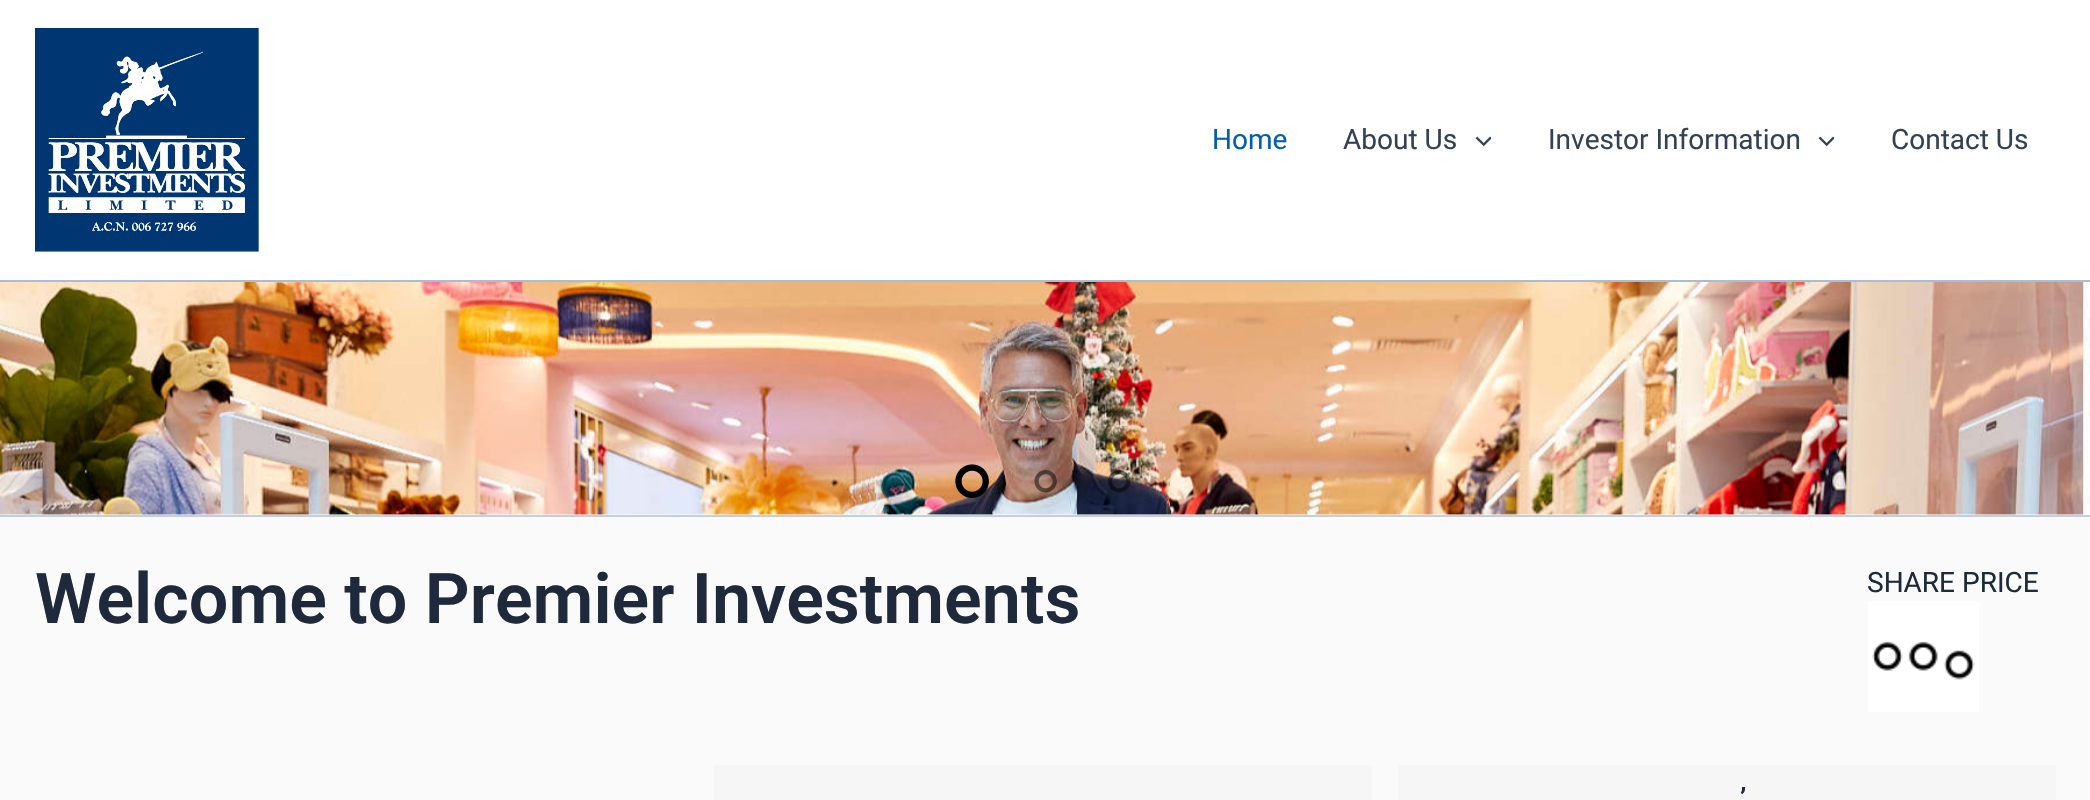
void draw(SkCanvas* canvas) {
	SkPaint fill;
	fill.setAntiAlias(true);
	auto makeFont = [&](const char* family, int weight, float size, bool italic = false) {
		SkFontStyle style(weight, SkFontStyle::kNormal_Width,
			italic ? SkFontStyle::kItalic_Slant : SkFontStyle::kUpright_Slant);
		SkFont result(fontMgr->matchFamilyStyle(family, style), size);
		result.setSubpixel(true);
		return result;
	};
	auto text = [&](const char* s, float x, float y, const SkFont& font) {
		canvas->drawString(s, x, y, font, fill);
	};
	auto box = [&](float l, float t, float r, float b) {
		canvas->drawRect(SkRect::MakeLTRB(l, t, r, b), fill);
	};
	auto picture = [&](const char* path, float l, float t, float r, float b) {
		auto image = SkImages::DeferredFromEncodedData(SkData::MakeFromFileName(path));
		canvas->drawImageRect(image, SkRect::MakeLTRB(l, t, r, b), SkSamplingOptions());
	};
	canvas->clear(0xFFFFFFFF);
	picture("image0.png", 35, 28, 259, 252);
	picture("image1.png", 1475, 136, 1491, 147);
	picture("image1.png", 1818, 136, 1834, 147);
	fill.setColor(0xFFFAFAFA);
	box(0, 517, 2090, 800);
	fill.setColor(0xFFABBDD0);
	box(0, 280, 2090, 282);
	picture("image2.png", 0, 282, 2090, 515);
	picture("image3.png", 955, 464, 989, 498);
	picture("image4.png", 1034, 470, 1057, 493);
	picture("image5.png", 1108, 470, 1131, 493);
	fill.setColor(0xFFC3CFDC);
	box(0, 515, 2090, 517);
	picture("image6.png", 1868, 601, 1979, 712);
	fill.setColor(0xFFF6F6F6);
	box(714, 765, 1372, 800);
	box(1398, 765, 2056, 800);
	auto font1 = makeFont("Roboto", 400, 28);
	fill.setColor(0xFF045CB4);
	text("Home", 1212, 149, font1);
	fill.setColor(0xFF334155);
	text("About Us", 1343, 149, font1);
	text("Investor Information", 1548, 149, font1);
	text("Contact Us", 1891, 149, font1);
	auto font2 = makeFont("Roboto", 600, 70);
	fill.setColor(0xFF1E293B);
	text("Welcome to Premier Investments", 35, 623, font2);
	text("SHARE PRICE", 1867, 592, font1);
	auto font3 = makeFont("Roboto", 600, 28);
	text("’", 1740, 808, font3);
}
